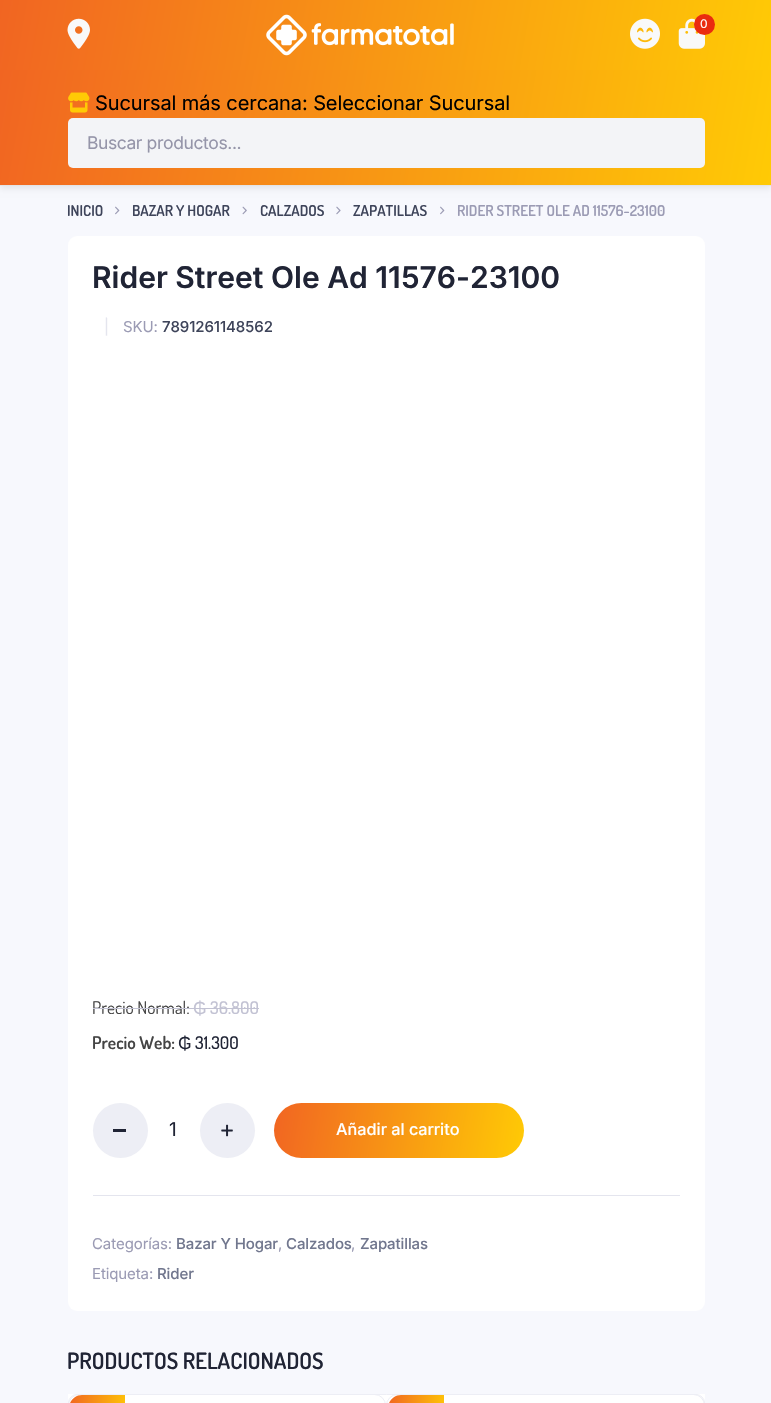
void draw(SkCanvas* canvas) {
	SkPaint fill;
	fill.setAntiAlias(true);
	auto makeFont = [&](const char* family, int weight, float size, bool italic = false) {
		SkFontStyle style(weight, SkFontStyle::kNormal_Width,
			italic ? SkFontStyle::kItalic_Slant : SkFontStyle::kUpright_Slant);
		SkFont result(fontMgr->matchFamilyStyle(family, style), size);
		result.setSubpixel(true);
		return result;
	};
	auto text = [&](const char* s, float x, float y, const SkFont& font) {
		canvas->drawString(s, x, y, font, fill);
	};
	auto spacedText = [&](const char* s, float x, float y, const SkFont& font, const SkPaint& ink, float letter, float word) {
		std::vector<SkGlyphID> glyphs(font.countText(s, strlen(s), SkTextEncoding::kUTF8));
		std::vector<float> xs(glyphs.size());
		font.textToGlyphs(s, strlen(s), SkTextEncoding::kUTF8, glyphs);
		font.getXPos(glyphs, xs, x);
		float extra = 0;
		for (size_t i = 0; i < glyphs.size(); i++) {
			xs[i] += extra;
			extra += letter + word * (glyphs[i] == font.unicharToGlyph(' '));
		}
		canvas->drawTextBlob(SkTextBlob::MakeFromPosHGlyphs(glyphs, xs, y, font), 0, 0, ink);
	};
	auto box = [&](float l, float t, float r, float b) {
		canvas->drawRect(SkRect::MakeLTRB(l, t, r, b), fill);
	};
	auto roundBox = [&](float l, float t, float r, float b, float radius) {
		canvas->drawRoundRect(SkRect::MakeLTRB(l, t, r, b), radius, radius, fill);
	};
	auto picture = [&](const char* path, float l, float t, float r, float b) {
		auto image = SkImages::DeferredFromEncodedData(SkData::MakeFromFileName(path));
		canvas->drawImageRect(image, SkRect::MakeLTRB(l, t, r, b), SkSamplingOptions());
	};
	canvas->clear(0xFFF7F8FD);
	fill.setColor(0x12000000);
	fill.setMaskFilter(SkMaskFilter::MakeBlur(kNormal_SkBlurStyle, 3));
	canvas->drawRect(SkRect::MakeLTRB(0, 3, 771, 189), fill);
	fill.setMaskFilter(nullptr);
	{
		const SkColor colors[] = {0xFFF16522, 0xFFFFCA05};
		const float stops[] = {0, 1};
		const SkPoint ends[] = {{5.6f, -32}, {766, 102}};
		fill.setShader(SkGradientShader::MakeLinear(ends, colors, stops, 2, SkTileMode::kClamp));
		fill.setAlpha(255);
	}
	box(0, 0, 771, 70);
	picture("image0.png", 67, 18, 90, 49);
	picture("image1.png", 266, 14, 454, 56);
	picture("image2.png", 630, 18, 660, 49);
	picture("image3.png", 678, 18, 705, 49);
	fill.setShader(nullptr);
	fill.setColor(0xFFEA2B0F);
	canvas->drawCircle(704.5f, 24.5f, 10.5f, fill);
	{
		const SkColor colors[] = {0xFFF16522, 0xFFFFCA05};
		const float stops[] = {0, 1};
		const SkPoint ends[] = {{1.8f, 60}, {769, 195}};
		fill.setShader(SkGradientShader::MakeLinear(ends, colors, stops, 2, SkTileMode::kClamp));
		fill.setAlpha(255);
	}
	box(0, 70, 771, 185);
	fill.setShader(nullptr);
	fill.setColor(0xFFE3E4E6);
	box(0, 185, 771, 186);
	picture("image4.png", 68, 92, 90, 113);
	fill.setColor(0xFFF3F4F7);
	roundBox(68, 118, 705, 168, 5);
	picture("image5.png", 115, 206, 120, 215);
	picture("image6.png", 242, 206, 247, 215);
	picture("image7.png", 336, 206, 341, 215);
	picture("image5.png", 440, 206, 445, 215);
	fill.setColor(0xFFFFFFFF);
	roundBox(68, 236, 705, 1311, 9);
	fill.setColor(0xFFC2C2D3);
	box(193, 1008, 206, 1009);
	box(206, 1008, 259, 1009);
	fill.setColor(0xFFEDEEF5);
	canvas->drawCircle(120.5f, 1130.5f, 27.5f, fill);
	fill.setColor(0xFF202435);
	box(113, 1129, 126, 1132);
	fill.setColor(0xFFEDEEF5);
	canvas->drawCircle(227.5f, 1130.5f, 27.5f, fill);
	picture("image8.png", 221, 1124, 233, 1137);
	{
		const SkColor colors[] = {0xFFF16522, 0xFFFFCA05};
		const float stops[] = {0, 1};
		const SkPoint ends[] = {{273, 1108}, {525, 1152}};
		fill.setShader(SkGradientShader::MakeLinear(ends, colors, stops, 2, SkTileMode::kClamp));
		fill.setAlpha(255);
	}
	roundBox(274, 1103, 524, 1158, 27.5f);
	fill.setShader(nullptr);
	fill.setColor(0xFFE4E5EE);
	box(93, 1195, 680, 1196);
	fill.setColor(0xFFFFFFFF);
	box(68, 1394, 705, 1403);
	fill.setStyle(SkPaint::kStroke_Style);
	fill.setStrokeWidth(1);
	fill.setColor(0xFFEDEEF5);
	canvas->drawRoundRect(SkRect::MakeLTRB(68.5f, 1394.5f, 704.5f, 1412.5f), 8.5f, 8.5f, fill);
	canvas->drawRoundRect(SkRect::MakeLTRB(68.5f, 1394.5f, 385.5f, 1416.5f), 12.5f, 12.5f, fill);
	fill.setStyle(SkPaint::kFill_Style);
	{
		const SkColor colors[] = {0xFFF16522, 0xFFFFCA05};
		const float stops[] = {0, 1};
		const SkPoint ends[] = {{66, 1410}, {128, 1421}};
		fill.setShader(SkGradientShader::MakeLinear(ends, colors, stops, 2, SkTileMode::kClamp));
		fill.setAlpha(255);
	}
	canvas->drawPath(SkPathBuilder().moveTo(82, 1395).lineTo(125, 1395).lineTo(125, 1403).cubicTo(125, 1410, 119, 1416, 112, 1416).lineTo(69, 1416).lineTo(69, 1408).cubicTo(69, 1401, 75, 1395, 82, 1395).close().detach(), fill);
	fill.setStyle(SkPaint::kStroke_Style);
	fill.setShader(nullptr);
	fill.setColor(0xFFEDEEF5);
	canvas->drawRoundRect(SkRect::MakeLTRB(386.5f, 1394.5f, 704.5f, 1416.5f), 12.5f, 12.5f, fill);
	fill.setStyle(SkPaint::kFill_Style);
	{
		const SkColor colors[] = {0xFFF16522, 0xFFFFCA05};
		const float stops[] = {0, 1};
		const SkPoint ends[] = {{385, 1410}, {446, 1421}};
		fill.setShader(SkGradientShader::MakeLinear(ends, colors, stops, 2, SkTileMode::kClamp));
		fill.setAlpha(255);
	}
	canvas->drawPath(SkPathBuilder().moveTo(401, 1395).lineTo(444, 1395).lineTo(444, 1403).cubicTo(444, 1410, 438, 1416, 431, 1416).lineTo(388, 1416).lineTo(388, 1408).cubicTo(388, 1401, 394, 1395, 401, 1395).close().detach(), fill);
	auto font1 = makeFont("Inter", 400, 12);
	fill.setShader(nullptr);
	fill.setColor(0xFFFFFFFF);
	spacedText("0", 700, 28, font1, fill, -0.1f, 0);
	auto font2 = makeFont("Inter", 400, 20);
	fill.setColor(0xFF000000);
	spacedText("Sucursal más cercana: Seleccionar Sucursal", 95, 110, font2, fill, -0.1f, 0);
	auto font3 = makeFont("Inter", 400, 17.5f);
	fill.setColor(0xFF9595A9);
	spacedText("Buscar productos...", 87, 149, font3, fill, -0.4f, 0);
	auto font4 = makeFont("Dosis", 600, 15);
	fill.setColor(0xFF3E445A);
	text("INICIO", 67, 216, font4);
	text("BAZAR Y HOGAR", 132, 216, font4);
	text("CALZADOS", 260, 216, font4);
	text("ZAPATILLAS", 353, 216, font4);
	fill.setColor(0xFF9B9BB4);
	text("RIDER STREET OLE AD 11576-23100", 457, 216, font4);
	auto font5 = makeFont("Inter", 600, 30);
	fill.setColor(0xFF202435);
	text("Rider Street Ole Ad 11576-23100", 92, 288, font5);
	auto font6 = makeFont("Inter", 400, 15);
	fill.setColor(0xFFE4E5EE);
	spacedText("|", 104, 332, font6, fill, -0.1f, 0);
	fill.setColor(0xFF9B9BB4);
	spacedText("SKU:", 123, 332, font6, fill, -0.1f, 0);
	auto font7 = makeFont("Inter", 500, 15);
	fill.setColor(0xFF3E445A);
	spacedText("7891261148562", 162, 332, font7, fill, -0.1f, 0);
	auto font8 = makeFont("Dosis", 400, 17.5f);
	fill.setColor(0xFF444444);
	text("Precio Normal:", 92, 1014, font8);
	auto font9 = makeFont("Liberation Sans", 400, 17.5f);
	fill.setColor(0xFFC2C2D3);
	text("₲", 193, 1014, font9);
	box(93, 1008, 193, 1009);
	auto font10 = makeFont("Dosis", 500, 17.5f);
	text("36.800", 210, 1014, font10);
	auto font11 = makeFont("Dosis", 600, 17.5f);
	fill.setColor(0xFF444444);
	text("Precio Web:", 92, 1049, font11);
	fill.setColor(0xFF202435);
	text("₲", 178, 1049, font9);
	text("31.300", 195, 1049, font10);
	auto font12 = makeFont("Inter", 400, 19);
	text("1", 169, 1136, font12);
	auto font13 = makeFont("Inter", 500, 16.25f);
	fill.setColor(0xFFFFFFFF);
	text("Añadir al carrito", 336, 1135, font13);
	fill.setColor(0xFF9B9BB4);
	spacedText("Categorías:", 92, 1249, font6, fill, -0.1f, 0);
	fill.setColor(0xFF71778E);
	spacedText("Bazar Y Hogar", 176, 1249, font7, fill, -0.1f, 0);
	fill.setColor(0xFF9B9BB4);
	spacedText(",", 278, 1249, font6, fill, -0.1f, 0);
	fill.setColor(0xFF71778E);
	spacedText("Calzados", 286, 1249, font7, fill, -0.1f, 0);
	fill.setColor(0xFF9B9BB4);
	spacedText(",", 351, 1249, font6, fill, -0.1f, 0);
	fill.setColor(0xFF71778E);
	spacedText("Zapatillas", 360, 1249, font7, fill, -0.1f, 0);
	fill.setColor(0xFF9B9BB4);
	spacedText("Etiqueta:", 92, 1279, font6, fill, -0.1f, 0);
	fill.setColor(0xFF71778E);
	spacedText("Rider", 157, 1279, font7, fill, -0.1f, 0);
	auto font14 = makeFont("Dosis", 600, 22.5f);
	fill.setColor(0xFF202435);
	text("PRODUCTOS RELACIONADOS", 67, 1369, font14);
}
